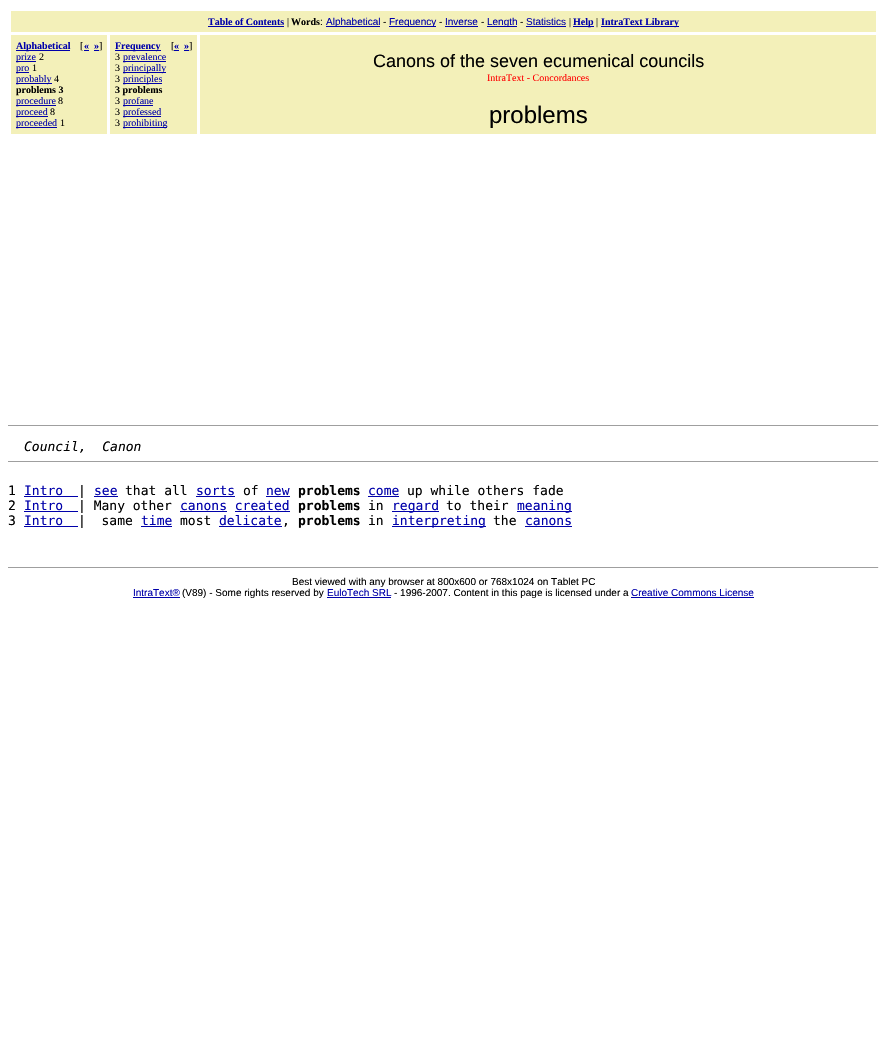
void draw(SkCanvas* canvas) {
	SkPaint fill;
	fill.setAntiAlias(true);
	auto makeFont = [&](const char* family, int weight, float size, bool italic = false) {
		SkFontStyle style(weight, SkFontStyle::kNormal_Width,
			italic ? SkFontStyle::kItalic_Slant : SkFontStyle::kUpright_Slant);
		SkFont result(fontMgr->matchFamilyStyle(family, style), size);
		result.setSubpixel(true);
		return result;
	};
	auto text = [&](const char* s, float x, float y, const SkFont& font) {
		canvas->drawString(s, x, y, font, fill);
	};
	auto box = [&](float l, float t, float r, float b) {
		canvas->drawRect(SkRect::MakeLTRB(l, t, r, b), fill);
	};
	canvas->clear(0xFFFFFFFF);
	fill.setColor(0xFFF3F0B9);
	box(11, 11, 876, 32);
	fill.setColor(0xFF0000AA);
	box(208, 26, 284, 27);
	box(326, 26, 380, 27);
	box(389, 26, 436, 27);
	box(445, 26, 478, 27);
	box(487, 26, 517, 27);
	box(526, 26, 566, 27);
	box(573, 26, 594, 27);
	box(601, 26, 679, 27);
	fill.setColor(0xFFF3F0B9);
	box(11, 35, 107, 134);
	fill.setColor(0xFF0000AA);
	box(16, 50, 70, 51);
	box(84, 50, 89, 51);
	box(94, 50, 99, 51);
	box(16, 61, 36, 62);
	box(16, 72, 29, 73);
	box(16, 83, 52, 84);
	box(16, 105, 56, 106);
	box(16, 116, 48, 117);
	box(16, 127, 57, 128);
	fill.setColor(0xFFF3F0B9);
	box(110, 35, 197, 134);
	fill.setColor(0xFF0000AA);
	box(115, 50, 161, 51);
	box(174, 50, 179, 51);
	box(184, 50, 189, 51);
	box(123, 61, 166, 62);
	box(123, 72, 166, 73);
	box(123, 83, 162, 84);
	box(123, 105, 153, 106);
	box(123, 116, 161, 117);
	box(123, 127, 167, 128);
	fill.setColor(0xFFF3F0B9);
	box(200, 35, 876, 134);
	fill.setColor(0xFF9F9F9F);
	box(8, 425, 879, 426);
	fill.setColor(0xFFEEEEEE);
	box(878, 425, 879, 426);
	fill.setColor(0xFF9F9F9F);
	box(8, 461, 879, 462);
	fill.setColor(0xFFEEEEEE);
	box(878, 461, 879, 462);
	fill.setColor(0xFF0000AA);
	box(24, 496, 78, 497);
	box(94, 496, 118, 497);
	box(196, 496, 235, 497);
	box(266, 496, 290, 497);
	box(368, 496, 399, 497);
	box(24, 511, 78, 512);
	box(180, 511, 227, 512);
	box(392, 511, 439, 512);
	box(517, 511, 572, 512);
	box(235, 511, 290, 512);
	box(24, 526, 78, 527);
	box(141, 526, 172, 527);
	box(219, 526, 282, 527);
	box(392, 526, 486, 527);
	box(525, 526, 572, 527);
	fill.setColor(0xFF9F9F9F);
	box(8, 567, 879, 568);
	fill.setColor(0xFFEEEEEE);
	box(878, 567, 879, 568);
	fill.setColor(0xFF0000AA);
	box(133, 597, 180, 598);
	box(327, 597, 391, 598);
	box(631, 597, 754, 598);
	auto font1 = makeFont("Liberation Serif", 700, 10);
	text("Table of Contents", 208, 25, font1);
	auto font2 = makeFont("Liberation Serif", 400, 10);
	fill.setColor(0xFF000000);
	text("|", 287, 25, font2);
	text("Words", 291, 25, font1);
	auto font3 = makeFont("Liberation Sans", 400, 10);
	text(":", 320, 25, font3);
	fill.setColor(0xFF0000AA);
	text("Alphabetical", 326, 25, font3);
	fill.setColor(0xFF000000);
	text("-", 383, 25, font3);
	fill.setColor(0xFF0000AA);
	text("Frequency", 389, 25, font3);
	fill.setColor(0xFF000000);
	text("-", 439, 25, font3);
	fill.setColor(0xFF0000AA);
	text("Inverse", 445, 25, font3);
	fill.setColor(0xFF000000);
	text("-", 481, 25, font3);
	fill.setColor(0xFF0000AA);
	text("Length", 487, 25, font3);
	fill.setColor(0xFF000000);
	text("-", 520, 25, font3);
	fill.setColor(0xFF0000AA);
	text("Statistics", 526, 25, font3);
	fill.setColor(0xFF000000);
	text("|", 569, 25, font2);
	fill.setColor(0xFF0000AA);
	text("Help", 573, 25, font1);
	fill.setColor(0xFF000000);
	text("|", 596, 25, font2);
	fill.setColor(0xFF0000AA);
	text("IntraText Library", 601, 25, font1);
	text("Alphabetical", 16, 49, font1);
	fill.setColor(0xFF000000);
	text("[", 80, 49, font2);
	fill.setColor(0xFF0000AA);
	text("«", 84, 49, font1);
	text("»", 94, 49, font1);
	fill.setColor(0xFF000000);
	text("]", 99, 49, font2);
	fill.setColor(0xFF0000AA);
	text("prize", 16, 60, font2);
	fill.setColor(0xFF000000);
	text("2", 39, 60, font2);
	fill.setColor(0xFF0000AA);
	text("pro", 16, 71, font2);
	fill.setColor(0xFF000000);
	text("1", 32, 71, font2);
	fill.setColor(0xFF0000AA);
	text("probably", 16, 82, font2);
	fill.setColor(0xFF000000);
	text("4", 54, 82, font2);
	text("problems 3", 16, 93, font1);
	fill.setColor(0xFF0000AA);
	text("procedure", 16, 104, font2);
	fill.setColor(0xFF000000);
	text("8", 58, 104, font2);
	fill.setColor(0xFF0000AA);
	text("proceed", 16, 115, font2);
	fill.setColor(0xFF000000);
	text("8", 50, 115, font2);
	fill.setColor(0xFF0000AA);
	text("proceeded", 16, 126, font2);
	fill.setColor(0xFF000000);
	text("1", 60, 126, font2);
	fill.setColor(0xFF0000AA);
	text("Frequency", 115, 49, font1);
	fill.setColor(0xFF000000);
	text("[", 171, 49, font2);
	fill.setColor(0xFF0000AA);
	text("«", 174, 49, font1);
	text("»", 184, 49, font1);
	fill.setColor(0xFF000000);
	text("]", 189, 49, font2);
	text("3", 115, 60, font2);
	fill.setColor(0xFF0000AA);
	text("prevalence", 123, 60, font2);
	fill.setColor(0xFF000000);
	text("3", 115, 71, font2);
	fill.setColor(0xFF0000AA);
	text("principally", 123, 71, font2);
	fill.setColor(0xFF000000);
	text("3", 115, 82, font2);
	fill.setColor(0xFF0000AA);
	text("principles", 123, 82, font2);
	fill.setColor(0xFF000000);
	text("3 problems", 115, 93, font1);
	text("3", 115, 104, font2);
	fill.setColor(0xFF0000AA);
	text("profane", 123, 104, font2);
	fill.setColor(0xFF000000);
	text("3", 115, 115, font2);
	fill.setColor(0xFF0000AA);
	text("professed", 123, 115, font2);
	fill.setColor(0xFF000000);
	text("3", 115, 126, font2);
	fill.setColor(0xFF0000AA);
	text("prohibiting", 123, 126, font2);
	auto font4 = makeFont("Liberation Sans", 400, 18);
	fill.setColor(0xFF000000);
	text("Canons of the seven ecumenical councils", 373, 67, font4);
	fill.setColor(0xFFFF0000);
	text("IntraText - Concordances", 487, 81, font2);
	auto font5 = makeFont("Liberation Sans", 400, 24);
	fill.setColor(0xFF000000);
	text("problems", 489, 123, font5);
	auto font6 = makeFont("DejaVu Sans Mono", 400, 13, true);
	text("Council,  Canon", 24, 451, font6);
	auto font7 = makeFont("DejaVu Sans Mono", 400, 13);
	text("1", 8, 495, font7);
	fill.setColor(0xFF0000AA);
	text("Intro", 24, 495, font7);
	fill.setColor(0xFF000000);
	text("|", 78, 495, font7);
	fill.setColor(0xFF0000AA);
	text("see", 94, 495, font7);
	fill.setColor(0xFF000000);
	text("that all", 125, 495, font7);
	fill.setColor(0xFF0000AA);
	text("sorts", 196, 495, font7);
	fill.setColor(0xFF000000);
	text("of", 243, 495, font7);
	fill.setColor(0xFF0000AA);
	text("new", 266, 495, font7);
	auto font8 = makeFont("DejaVu Sans Mono", 700, 13);
	fill.setColor(0xFF000000);
	text("problems", 298, 495, font8);
	fill.setColor(0xFF0000AA);
	text("come", 368, 495, font7);
	fill.setColor(0xFF000000);
	text("up while others fade", 407, 495, font7);
	text("2", 8, 510, font7);
	fill.setColor(0xFF0000AA);
	text("Intro", 24, 510, font7);
	fill.setColor(0xFF000000);
	text("| Many other", 78, 510, font7);
	fill.setColor(0xFF0000AA);
	text("canons created", 180, 510, font7);
	fill.setColor(0xFF000000);
	text("problems", 298, 510, font8);
	text("in", 368, 510, font7);
	fill.setColor(0xFF0000AA);
	text("regard", 392, 510, font7);
	fill.setColor(0xFF000000);
	text("to their", 446, 510, font7);
	fill.setColor(0xFF0000AA);
	text("meaning", 517, 510, font7);
	fill.setColor(0xFF000000);
	text("3", 8, 525, font7);
	fill.setColor(0xFF0000AA);
	text("Intro", 24, 525, font7);
	fill.setColor(0xFF000000);
	text("|  same", 78, 525, font7);
	fill.setColor(0xFF0000AA);
	text("time", 141, 525, font7);
	fill.setColor(0xFF000000);
	text("most", 180, 525, font7);
	fill.setColor(0xFF0000AA);
	text("delicate", 219, 525, font7);
	fill.setColor(0xFF000000);
	text(",", 282, 525, font7);
	text("problems", 298, 525, font8);
	text("in", 368, 525, font7);
	fill.setColor(0xFF0000AA);
	text("interpreting", 392, 525, font7);
	fill.setColor(0xFF000000);
	text("the", 493, 525, font7);
	fill.setColor(0xFF0000AA);
	text("canons", 525, 525, font7);
	fill.setColor(0xFF000000);
	text("Best viewed with any browser at 800x600 or 768x1024 on Tablet PC", 292, 585, font3);
	fill.setColor(0xFF0000AA);
	text("IntraText®", 133, 596, font3);
	fill.setColor(0xFF000000);
	text("(V89) - Some rights reserved by", 182, 596, font3);
	fill.setColor(0xFF0000AA);
	text("EuloTech SRL", 327, 596, font3);
	fill.setColor(0xFF000000);
	text("- 1996-2007. Content in this page is licensed under a", 394, 596, font3);
	fill.setColor(0xFF0000AA);
	text("Creative Commons License", 631, 596, font3);
}
